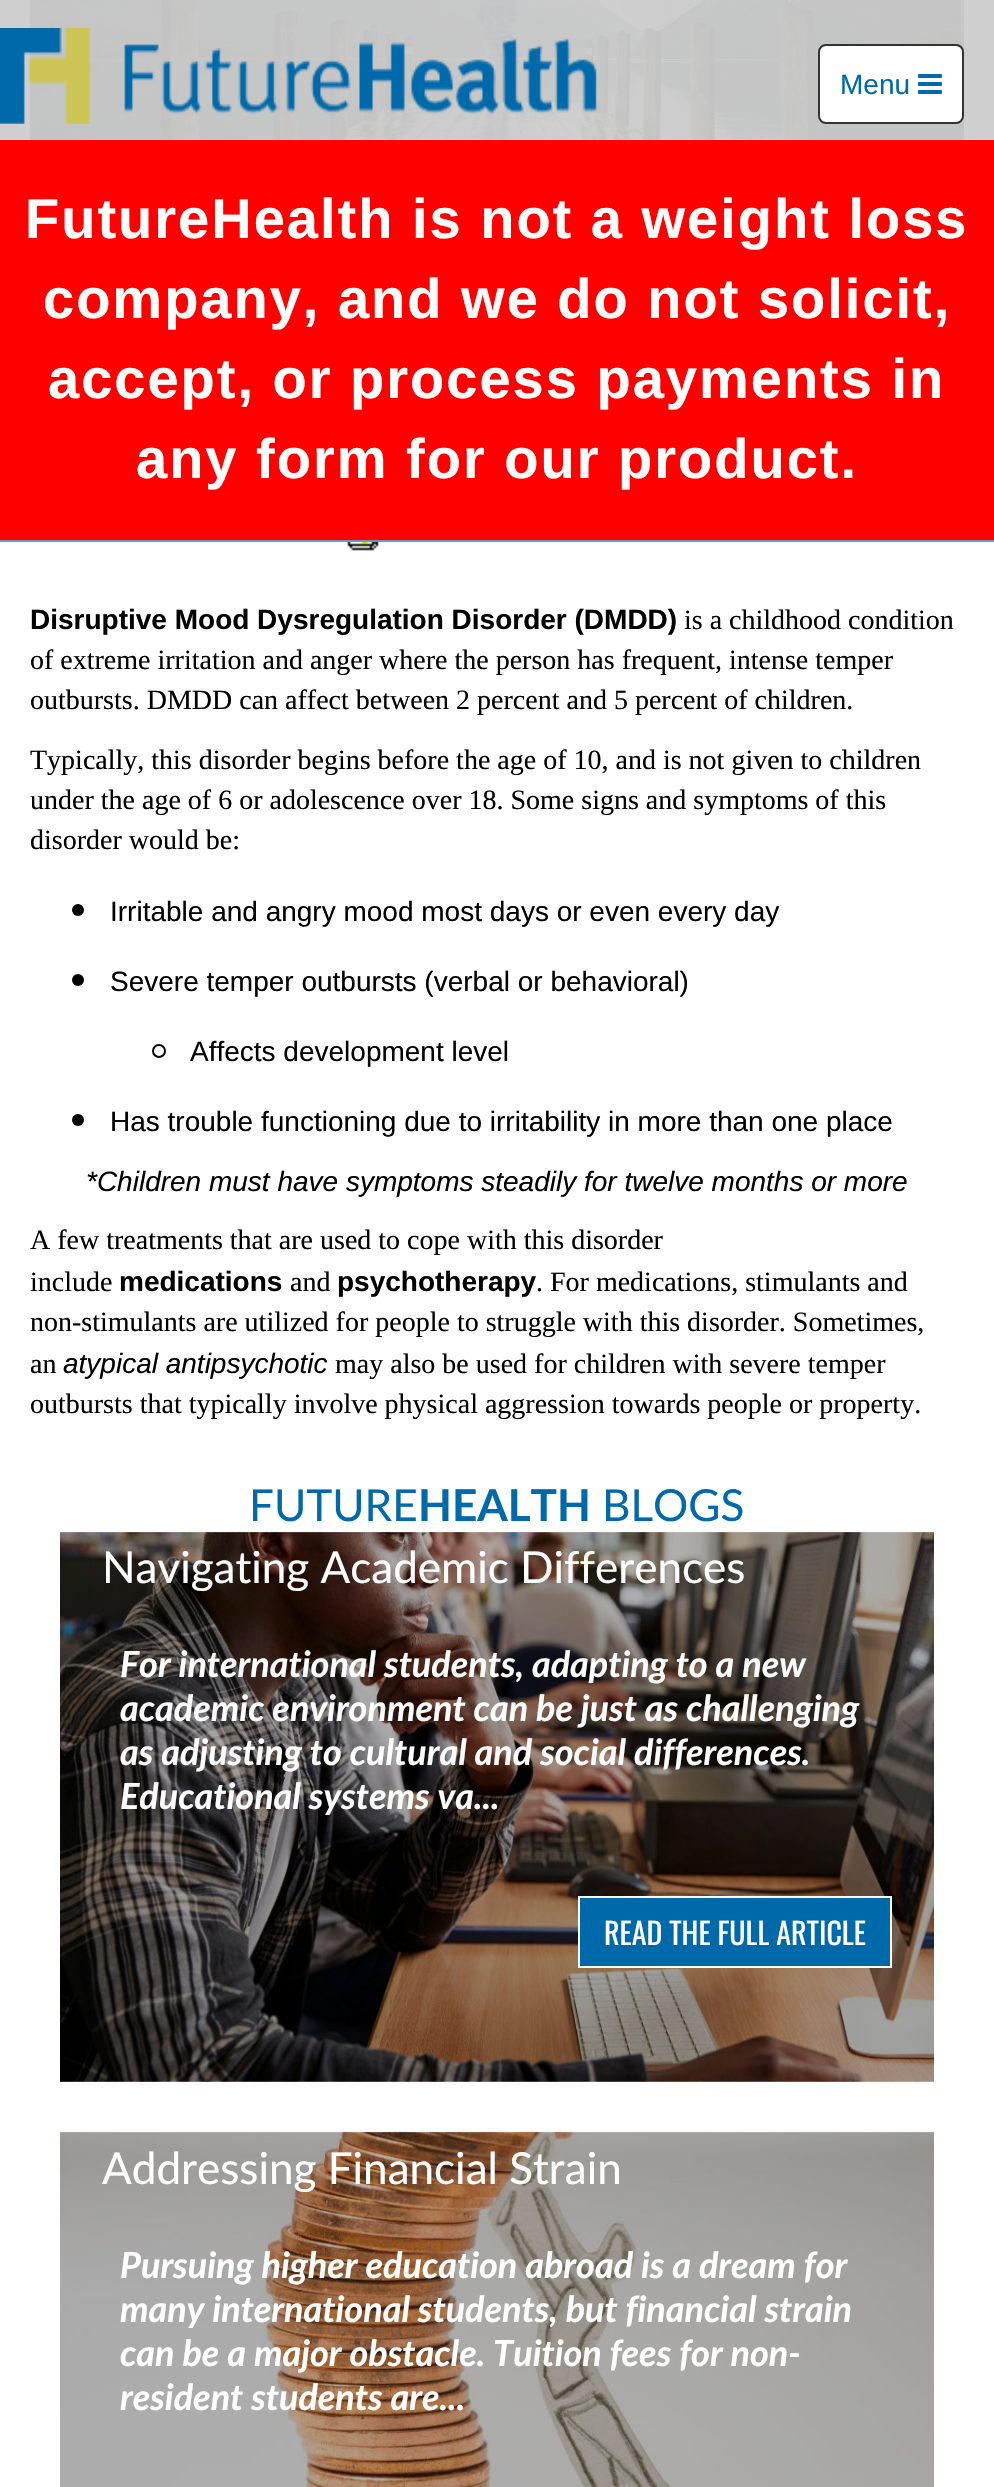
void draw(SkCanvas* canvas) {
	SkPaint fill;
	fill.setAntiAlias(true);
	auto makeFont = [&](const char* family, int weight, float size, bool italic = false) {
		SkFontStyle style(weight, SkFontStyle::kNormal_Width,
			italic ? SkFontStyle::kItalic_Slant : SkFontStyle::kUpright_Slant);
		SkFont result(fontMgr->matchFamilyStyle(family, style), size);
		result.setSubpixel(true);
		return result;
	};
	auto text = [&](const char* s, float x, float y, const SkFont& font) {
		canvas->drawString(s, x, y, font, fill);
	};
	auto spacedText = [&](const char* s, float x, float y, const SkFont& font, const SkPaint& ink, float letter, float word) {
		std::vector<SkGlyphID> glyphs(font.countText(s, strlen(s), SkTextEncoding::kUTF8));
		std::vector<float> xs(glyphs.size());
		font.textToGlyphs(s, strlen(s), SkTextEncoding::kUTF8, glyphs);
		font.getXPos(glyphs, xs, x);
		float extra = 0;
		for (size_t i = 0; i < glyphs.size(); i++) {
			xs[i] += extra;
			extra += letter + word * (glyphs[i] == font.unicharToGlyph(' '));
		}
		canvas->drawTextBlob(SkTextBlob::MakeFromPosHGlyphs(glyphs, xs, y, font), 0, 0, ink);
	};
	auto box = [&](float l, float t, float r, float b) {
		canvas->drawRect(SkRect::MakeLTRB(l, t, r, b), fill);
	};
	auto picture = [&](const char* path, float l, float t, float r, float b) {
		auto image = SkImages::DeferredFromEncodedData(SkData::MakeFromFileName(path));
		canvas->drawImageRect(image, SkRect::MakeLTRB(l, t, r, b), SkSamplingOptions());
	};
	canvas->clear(0xFFFFFFFF);
	picture("image2.png", 30, 0, 964, 140);
	picture("image3.png", 347, 540, 381, 551);
	fill.setColor(0xF2CCCCCC);
	box(0, 0, 994, 542);
	fill.setColor(0x800069AA);
	box(0, 540, 994, 542);
	picture("image0.png", 0, 28, 597, 124);
	fill.setColor(0xFFFFFFFF);
	canvas->drawRoundRect(SkRect::MakeLTRB(819, 45, 963, 123), 7, 7, fill);
	fill.setStyle(SkPaint::kStroke_Style);
	fill.setStrokeWidth(2);
	fill.setColor(0xFF333333);
	canvas->drawRoundRect(SkRect::MakeLTRB(819, 45, 963, 123), 7, 7, fill);
	picture("image1.png", 918, 74, 942, 94);
	fill.setStyle(SkPaint::kFill_Style);
	fill.setColor(0xFFFF0000);
	box(0, 140, 994, 540);
	fill.setColor(0xFF000000);
	canvas->drawCircle(78, 910, 6, fill);
	canvas->drawCircle(78, 980, 6, fill);
	fill.setStyle(SkPaint::kStroke_Style);
	canvas->drawCircle(159, 1051, 6, fill);
	fill.setStyle(SkPaint::kFill_Style);
	canvas->drawCircle(78, 1120, 6, fill);
	picture("image4.png", 60, 1532, 934, 2082);
	fill.setColor(0xFF0069AA);
	canvas->drawRect(SkRect::MakeLTRB(579, 1897, 891, 1967), fill);
	fill.setStyle(SkPaint::kStroke_Style);
	fill.setColor(0xFFFFFFFF);
	canvas->drawRect(SkRect::MakeLTRB(579, 1897, 891, 1967), fill);
	picture("image5.png", 60, 2131, 934, 2487);
	auto font1 = makeFont("Liberation Sans", 400, 28);
	fill.setStyle(SkPaint::kFill_Style);
	fill.setColor(0xFF0069AA);
	text("Menu", 840, 94, font1);
	auto font2 = makeFont("Liberation Sans", 700, 56);
	fill.setColor(0xFFFFFFFF);
	spacedText("FutureHealth is not a weight loss", 25, 238, font2, fill, 2, 0);
	spacedText("company, and we do not solicit,", 43, 318, font2, fill, 2, 0);
	spacedText("accept, or process payments in", 48, 398, font2, fill, 2, 0);
	spacedText("any form for our product.", 136, 478, font2, fill, 2, 0);
	auto font3 = makeFont("Liberation Sans", 700, 28);
	fill.setColor(0xFF000000);
	text("Disruptive Mood Dysregulation Disorder (DMDD)", 30, 629, font3);
	auto font4 = makeFont("Liberation Serif", 400, 28);
	text("is a childhood condition", 684, 629, font4);
	text("of extreme irritation and anger where the person has frequent, intense temper", 30, 669, font4);
	text("outbursts. DMDD can affect between 2 percent and 5 percent of children.", 30, 709, font4);
	text("Typically, this disorder begins before the age of 10, and is not given to children", 30, 769, font4);
	text("under the age of 6 or adolescence over 18. Some signs and symptoms of this", 30, 809, font4);
	text("disorder would be:", 30, 849, font4);
	text("Irritable and angry mood most days or even every day", 110, 921, font1);
	text("Severe temper outbursts (verbal or behavioral)", 110, 991, font1);
	text("Affects development level", 190, 1061, font1);
	text("Has trouble functioning due to irritability in more than one place", 110, 1131, font1);
	auto font5 = makeFont("Liberation Sans", 400, 28, true);
	text("*Children must have symptoms steadily for twelve months or more", 86, 1191, font5);
	text("A few treatments that are used to cope with this disorder", 30, 1249, font4);
	text("include", 30, 1291, font4);
	text("medications", 119, 1291, font3);
	text("and", 290, 1291, font4);
	text("psychotherapy", 337, 1291, font3);
	text(". For medications, stimulants and", 536, 1291, font4);
	text("non-stimulants are utilized for people to struggle with this disorder. Sometimes,", 30, 1331, font4);
	text("an", 30, 1373, font4);
	text("atypical antipsychotic", 63, 1373, font5);
	text("may also be used for children with severe temper", 335, 1373, font4);
	text("outbursts that typically involve physical aggression towards people or property.", 30, 1413, font4);
	auto font6 = makeFont("Lato", 400, 44);
	fill.setColor(0xFF0069AA);
	text("FUTURE", 249, 1521, font6);
	auto font7 = makeFont("Lato", 700, 44);
	text("HEALTH", 418, 1521, font7);
	text("BLOGS", 602, 1521, font6);
	fill.setColor(0xFFFFFFFF);
	text("Navigating Academic Differences", 102, 1583, font6);
	auto font8 = makeFont("Lato", 700, 36, true);
	text("For international students, adapting to a new", 120, 1677, font8);
	text("academic environment can be just as challenging", 120, 1721, font8);
	text("as adjusting to cultural and social differences.", 120, 1765, font8);
	text("Educational systems va...", 120, 1809, font8);
	auto font9 = makeFont("Oswald", 400, 30);
	text("READ THE FULL ARTICLE", 604, 1945, font9);
	text("Addressing Financial Strain", 102, 2184, font6);
	text("Pursuing higher education abroad is a dream for", 120, 2278, font8);
	text("many international students, but financial strain", 120, 2322, font8);
	text("can be a major obstacle. Tuition fees for non-", 120, 2366, font8);
	text("resident students are...", 120, 2410, font8);
}
